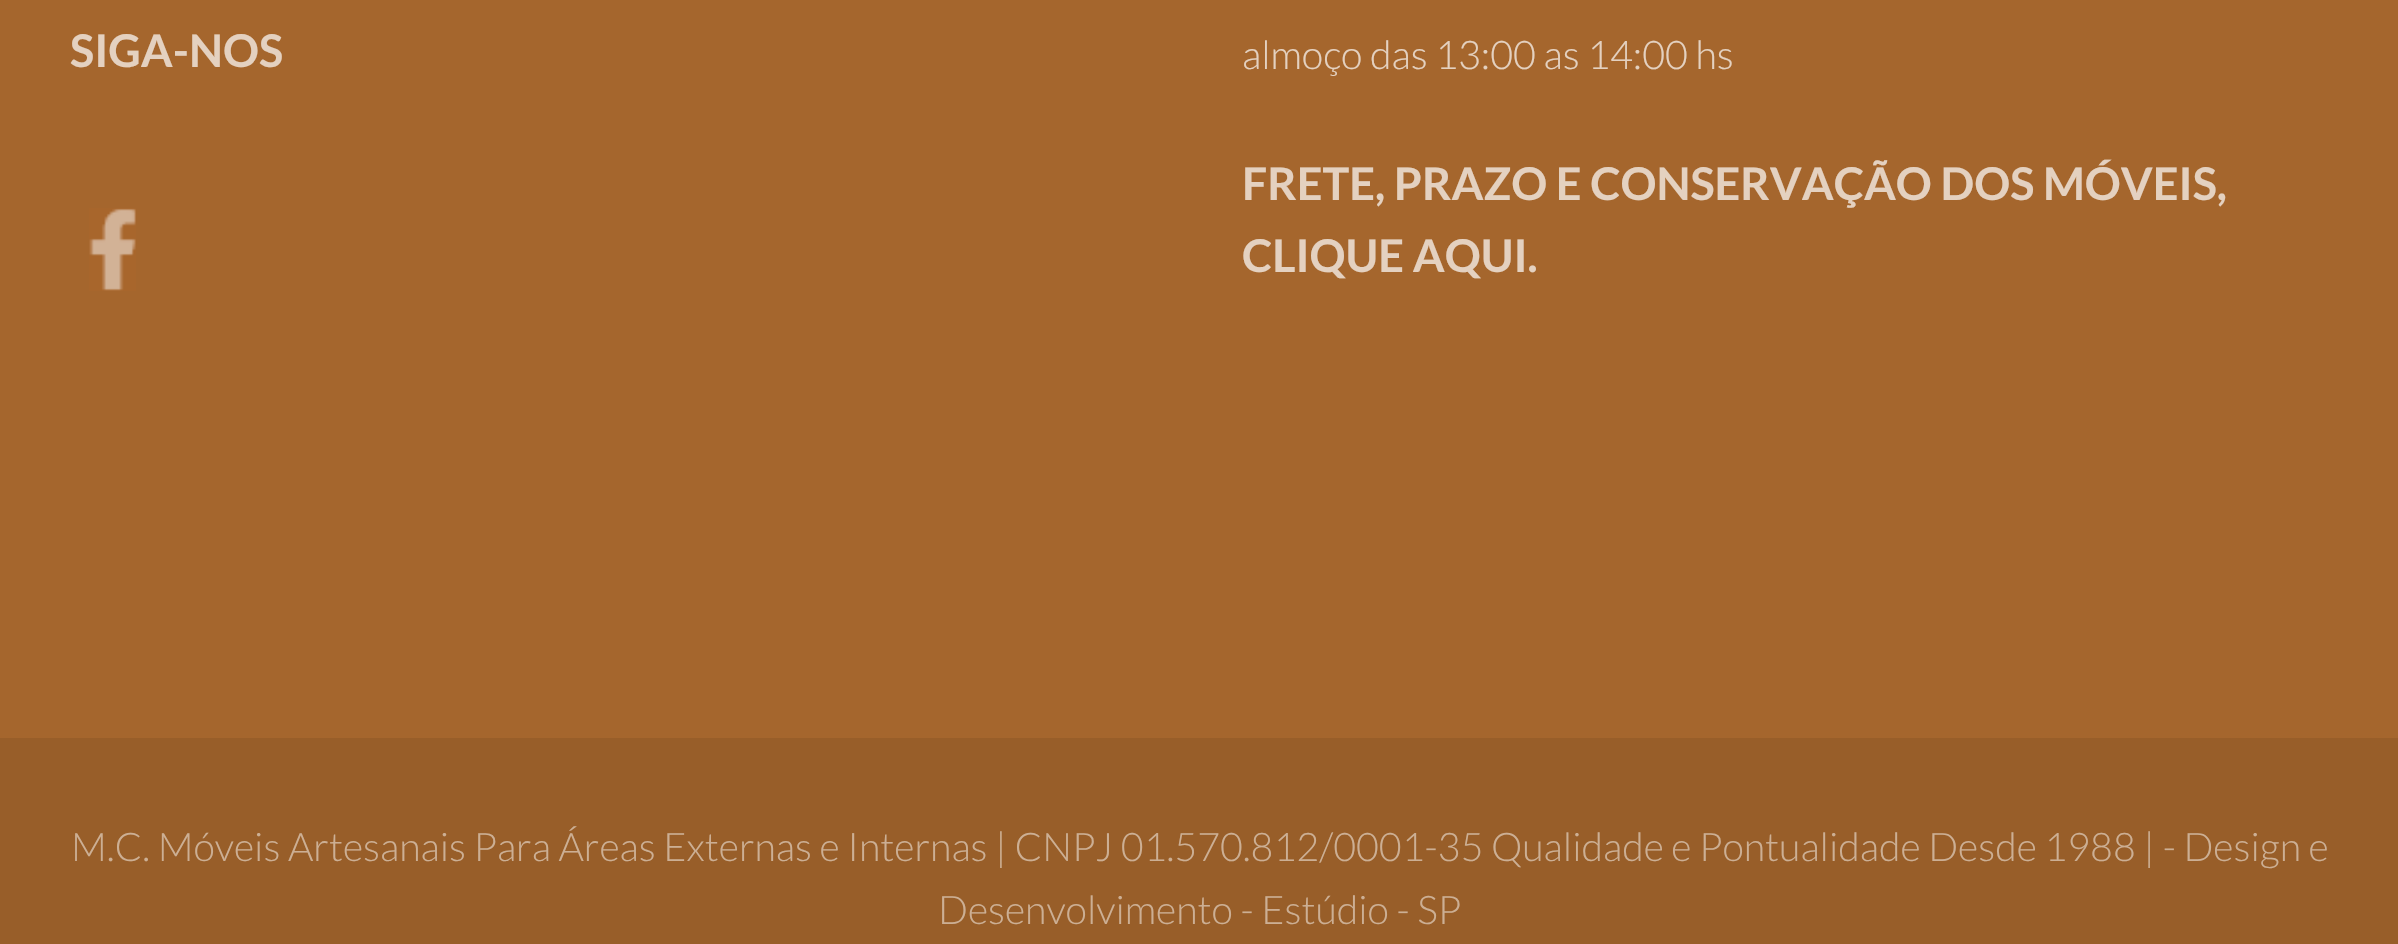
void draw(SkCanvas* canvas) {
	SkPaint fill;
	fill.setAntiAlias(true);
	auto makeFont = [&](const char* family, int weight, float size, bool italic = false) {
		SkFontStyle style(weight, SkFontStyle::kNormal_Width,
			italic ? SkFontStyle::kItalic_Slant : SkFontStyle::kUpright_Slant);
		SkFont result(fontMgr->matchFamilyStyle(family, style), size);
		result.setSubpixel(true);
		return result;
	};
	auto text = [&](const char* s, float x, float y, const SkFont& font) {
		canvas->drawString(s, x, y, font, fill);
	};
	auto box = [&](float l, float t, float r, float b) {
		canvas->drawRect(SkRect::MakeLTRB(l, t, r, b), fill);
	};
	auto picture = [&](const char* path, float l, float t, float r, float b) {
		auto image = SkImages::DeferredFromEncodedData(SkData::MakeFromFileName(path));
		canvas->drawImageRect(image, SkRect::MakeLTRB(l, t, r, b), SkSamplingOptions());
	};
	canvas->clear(0xFFA5662D);
	picture("image0.png", 89, 208, 136, 291);
	fill.setColor(0xFF985E29);
	box(0, 738, 2398, 944);
	auto font1 = makeFont("Lato", 700, 45);
	fill.setColor(0xFFE4D1C0);
	text("SIGA-NOS", 70, 67, font1);
	auto font2 = makeFont("Lato", 300, 39.38f);
	text("almoço das 13:00 as 14:00 hs", 1242, 69, font2);
	text("FRETE, PRAZO E CONSERVAÇÃO DOS MÓVEIS,", 1242, 200, font1);
	text("CLIQUE AQUI.", 1242, 272, font1);
	fill.setColor(0xFFCCAF94);
	text("M.C. Móveis Artesanais Para Áreas Externas e Internas | CNPJ 01.570.812/0001-35 Qualidade e Pontualidade Desde 1988 | - Design e", 71, 861, font2);
	text("Desenvolvimento - Estúdio - SP", 938, 924, font2);
}
